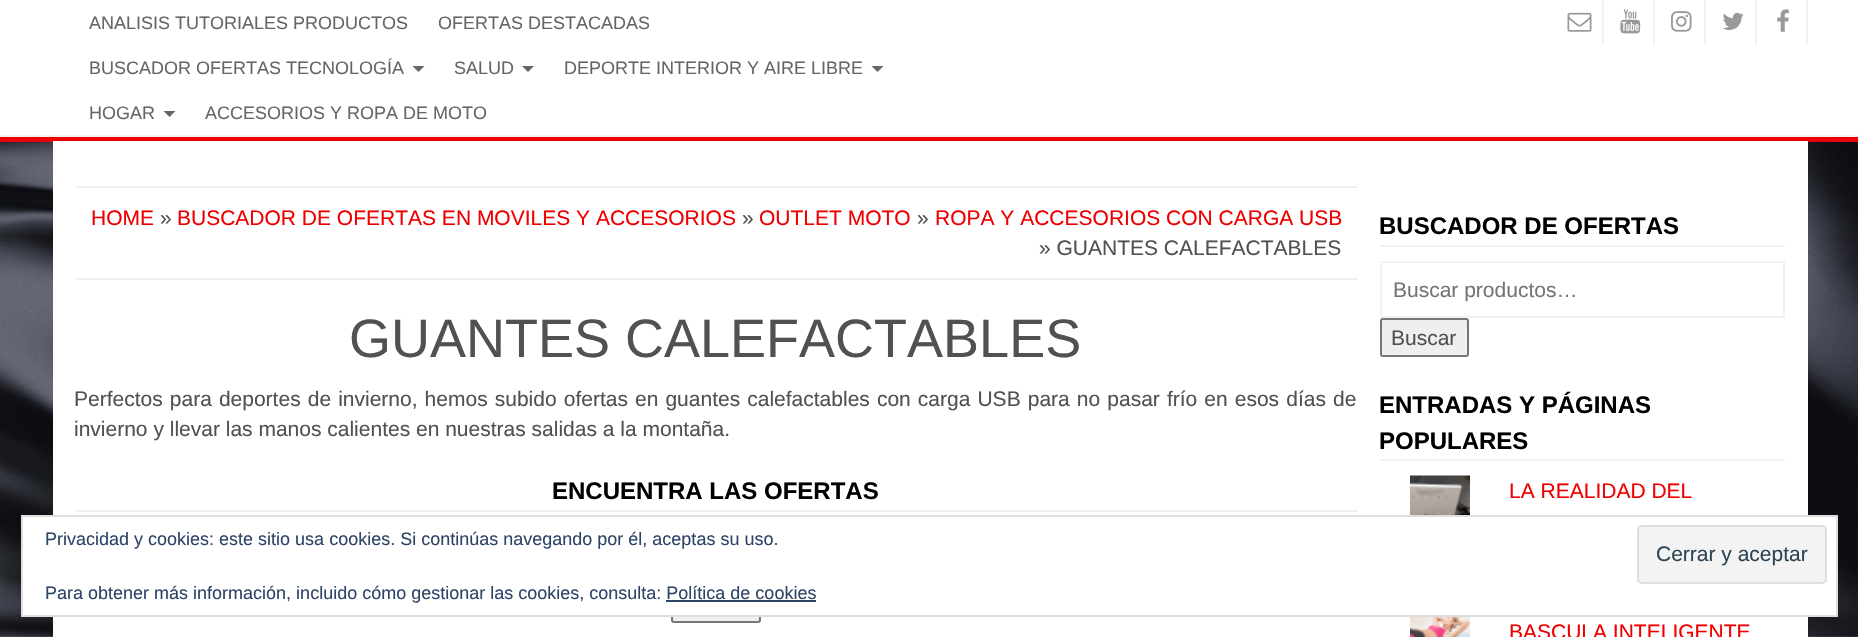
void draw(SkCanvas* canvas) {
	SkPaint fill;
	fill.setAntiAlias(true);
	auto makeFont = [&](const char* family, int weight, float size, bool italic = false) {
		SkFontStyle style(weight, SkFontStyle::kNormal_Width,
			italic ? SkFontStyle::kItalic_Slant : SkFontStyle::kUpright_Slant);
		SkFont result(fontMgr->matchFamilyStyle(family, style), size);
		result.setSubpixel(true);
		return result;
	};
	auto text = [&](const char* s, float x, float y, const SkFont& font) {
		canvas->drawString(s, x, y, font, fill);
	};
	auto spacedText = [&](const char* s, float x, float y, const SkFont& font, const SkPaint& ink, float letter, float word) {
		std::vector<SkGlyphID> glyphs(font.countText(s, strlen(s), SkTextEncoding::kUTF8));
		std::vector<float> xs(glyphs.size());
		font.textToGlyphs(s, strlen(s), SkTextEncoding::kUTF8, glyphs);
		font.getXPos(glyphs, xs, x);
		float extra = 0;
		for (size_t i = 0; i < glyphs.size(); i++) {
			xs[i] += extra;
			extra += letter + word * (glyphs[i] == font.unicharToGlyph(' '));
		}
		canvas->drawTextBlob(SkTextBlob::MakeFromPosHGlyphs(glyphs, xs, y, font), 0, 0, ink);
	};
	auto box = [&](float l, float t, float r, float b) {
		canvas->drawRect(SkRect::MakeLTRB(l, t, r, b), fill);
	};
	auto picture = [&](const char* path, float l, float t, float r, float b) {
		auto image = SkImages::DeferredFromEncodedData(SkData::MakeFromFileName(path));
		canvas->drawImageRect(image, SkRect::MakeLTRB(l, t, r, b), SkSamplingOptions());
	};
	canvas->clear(0xFFFFFFFF);
	picture("image0.png", 0, 142, 1858, 637);
	fill.setColor(0xFFEF0000);
	box(0, 137, 1858, 142);
	fill.setColor(0xFFF1F1F1);
	box(0, 135, 1858, 137);
	fill.setColor(0xFF666666);
	canvas->drawPath(SkPathBuilder().moveTo(412.5f, 66).lineTo(424.5f, 66).lineTo(418.5f, 72).close().detach(), fill);
	canvas->drawPath(SkPathBuilder().moveTo(522, 66).lineTo(534, 66).lineTo(528, 72).close().detach(), fill);
	canvas->drawPath(SkPathBuilder().moveTo(871.5f, 66).lineTo(883.5f, 66).lineTo(877.5f, 72).close().detach(), fill);
	canvas->drawPath(SkPathBuilder().moveTo(163.5f, 111).lineTo(175.5f, 111).lineTo(169.5f, 117).close().detach(), fill);
	fill.setColor(0xFFF1F1F1);
	box(1602, 0, 1604, 45);
	picture("image1.png", 1567, 12, 1592, 32);
	box(1653, 0, 1655, 45);
	picture("image2.png", 1620, 9, 1641, 34);
	box(1704, 0, 1706, 45);
	picture("image3.png", 1671, 11, 1692, 32);
	box(1755, 0, 1757, 45);
	picture("image4.png", 1722, 12, 1744, 30);
	box(1806, 0, 1808, 45);
	picture("image5.png", 1777, 9, 1789, 32);
	fill.setColor(0xFFFFFFFF);
	box(53, 141, 1808, 637);
	fill.setColor(0xFFF1F1F1);
	box(75, 186, 1358, 188);
	box(75, 278, 1358, 280);
	box(75, 510, 1358, 512);
	fill.setColor(0xFFEFEFEF);
	canvas->drawRoundRect(SkRect::MakeLTRB(672, 585, 760, 622), 2, 2, fill);
	fill.setStyle(SkPaint::kStroke_Style);
	fill.setStrokeWidth(2);
	fill.setColor(0xFF767676);
	canvas->drawRoundRect(SkRect::MakeLTRB(672, 585, 760, 622), 2, 2, fill);
	fill.setStyle(SkPaint::kFill_Style);
	fill.setColor(0xFFF1F1F1);
	box(1380, 245, 1785, 247);
	fill.setStyle(SkPaint::kStroke_Style);
	canvas->drawRect(SkRect::MakeLTRB(1381, 262, 1784, 317), fill);
	fill.setStyle(SkPaint::kFill_Style);
	fill.setColor(0xFFEFEFEF);
	canvas->drawRoundRect(SkRect::MakeLTRB(1381, 319, 1468, 356), 2, 2, fill);
	fill.setStyle(SkPaint::kStroke_Style);
	fill.setColor(0xFF767676);
	canvas->drawRoundRect(SkRect::MakeLTRB(1381, 319, 1468, 356), 2, 2, fill);
	fill.setStyle(SkPaint::kFill_Style);
	fill.setColor(0xFFF1F1F1);
	box(1380, 459, 1785, 461);
	picture("image6.png", 1410, 475, 1470, 515);
	picture("image7.png", 1410, 617, 1470, 637);
	fill.setColor(0xFFFFFFFF);
	canvas->drawRect(SkRect::MakeLTRB(22, 516, 1837, 616), fill);
	fill.setStyle(SkPaint::kStroke_Style);
	fill.setColor(0xFFDEDEDE);
	canvas->drawRect(SkRect::MakeLTRB(22, 516, 1837, 616), fill);
	fill.setStyle(SkPaint::kFill_Style);
	fill.setColor(0xFFF3F3F3);
	canvas->drawRoundRect(SkRect::MakeLTRB(1638, 526, 1826, 583), 4, 4, fill);
	fill.setStyle(SkPaint::kStroke_Style);
	fill.setColor(0xFFDEDEDE);
	canvas->drawRoundRect(SkRect::MakeLTRB(1638, 526, 1826, 583), 4, 4, fill);
	fill.setStyle(SkPaint::kFill_Style);
	fill.setColor(0xFF2E4467);
	box(666, 600, 816, 602);
	auto font1 = makeFont("Liberation Sans", 400, 18);
	fill.setColor(0xFF666666);
	text("ANALISIS TUTORIALES PRODUCTOS", 89, 29, font1);
	text("OFERTAS DESTACADAS", 438, 29, font1);
	text("BUSCADOR OFERTAS TECNOLOGÍA", 89, 74, font1);
	text("SALUD", 454, 74, font1);
	text("DEPORTE INTERIOR Y AIRE LIBRE", 564, 74, font1);
	text("HOGAR", 89, 119, font1);
	text("ACCESORIOS Y ROPA DE MOTO", 205, 119, font1);
	auto font2 = makeFont("Liberation Sans", 400, 21);
	fill.setColor(0xFFEF0000);
	text("HOME", 91, 225, font2);
	fill.setColor(0xFF515151);
	text("»", 160, 225, font2);
	fill.setColor(0xFFEF0000);
	text("BUSCADOR DE OFERTAS EN MOVILES Y ACCESORIOS", 177, 225, font2);
	fill.setColor(0xFF515151);
	text("»", 742, 225, font2);
	fill.setColor(0xFFEF0000);
	text("OUTLET MOTO", 759, 225, font2);
	fill.setColor(0xFF515151);
	text("»", 917, 225, font2);
	fill.setColor(0xFFEF0000);
	text("ROPA Y ACCESORIOS CON CARGA USB", 935, 225, font2);
	fill.setColor(0xFF515151);
	text("» GUANTES CALEFACTABLES", 1039, 255, font2);
	auto font3 = makeFont("Liberation Sans", 400, 54);
	text("GUANTES CALEFACTABLES", 349, 357, font3);
	spacedText("Perfectos para deportes de invierno, hemos subido ofertas en guantes calefactables con carga USB para no pasar frío en esos días de", 74, 406, font2, fill, 0, 1.25f);
	text("invierno y llevar las manos calientes en nuestras salidas a la montaña.", 74, 436, font2);
	auto font4 = makeFont("Liberation Sans", 700, 24);
	fill.setColor(0xFF000000);
	text("ENCUENTRA LAS OFERTAS", 552, 499, font4);
	text("BUSCADOR DE OFERTAS", 1379, 234, font4);
	fill.setColor(0xFF757575);
	text("Buscar productos…", 1393, 297, font2);
	fill.setColor(0xFF515151);
	text("Buscar", 1391, 345, font2);
	fill.setColor(0xFF000000);
	text("ENTRADAS Y PÁGINAS", 1379, 413, font4);
	text("POPULARES", 1379, 449, font4);
	fill.setColor(0xFFEF0000);
	text("LA REALIDAD DEL", 1509, 498, font2);
	text("BASCULA INTELIGENTE", 1509, 639, font2);
	fill.setColor(0xFF2E4467);
	text("Privacidad y cookies: este sitio usa cookies. Si continúas navegando por él, aceptas su uso.", 45, 545, font1);
	fill.setColor(0xFF2E4453);
	text("Cerrar y aceptar", 1656, 561, font2);
	fill.setColor(0xFF2E4467);
	text("Para obtener más información, incluido cómo gestionar las cookies, consulta: Política de cookies", 45, 599, font1);
}
